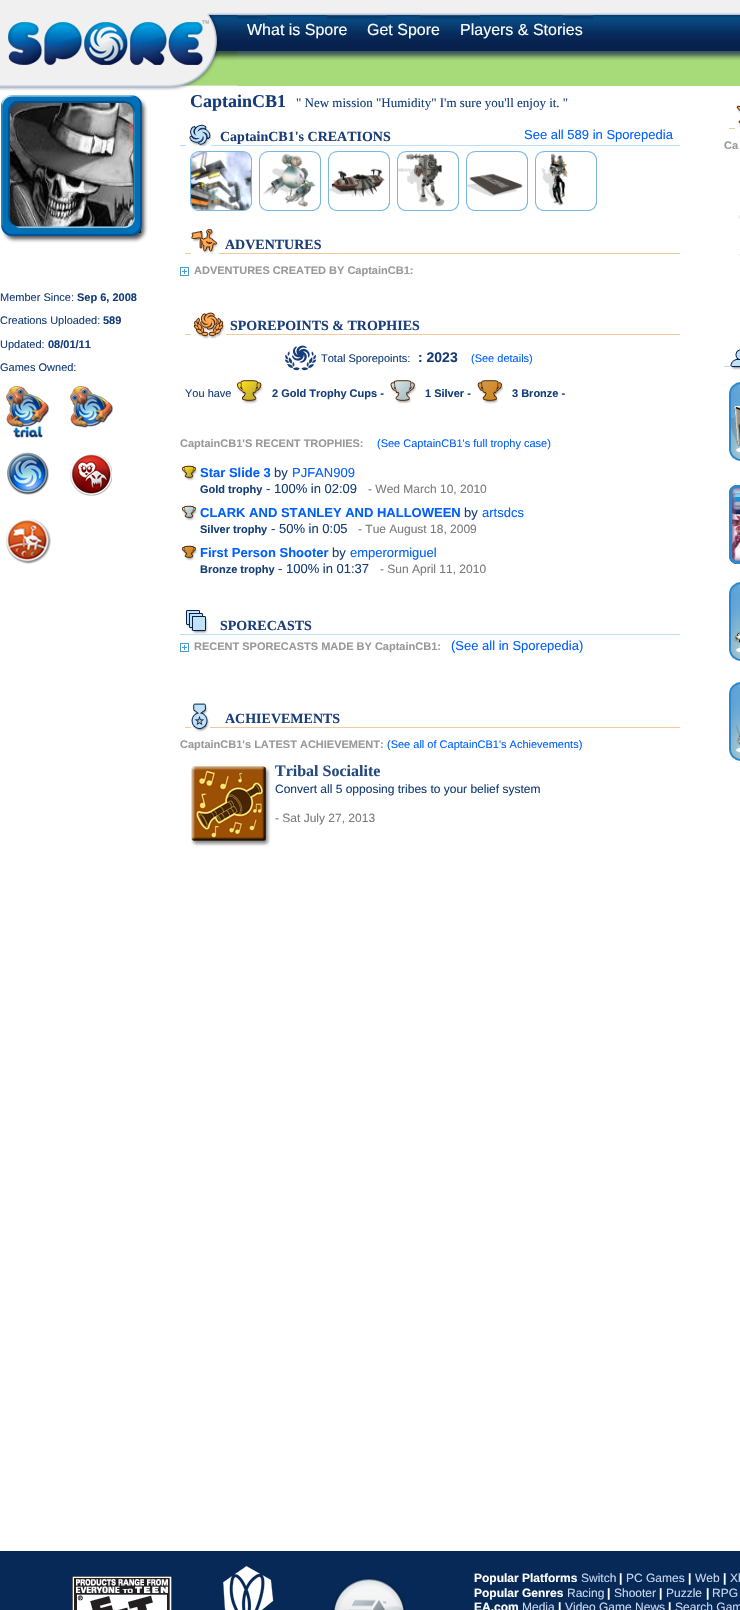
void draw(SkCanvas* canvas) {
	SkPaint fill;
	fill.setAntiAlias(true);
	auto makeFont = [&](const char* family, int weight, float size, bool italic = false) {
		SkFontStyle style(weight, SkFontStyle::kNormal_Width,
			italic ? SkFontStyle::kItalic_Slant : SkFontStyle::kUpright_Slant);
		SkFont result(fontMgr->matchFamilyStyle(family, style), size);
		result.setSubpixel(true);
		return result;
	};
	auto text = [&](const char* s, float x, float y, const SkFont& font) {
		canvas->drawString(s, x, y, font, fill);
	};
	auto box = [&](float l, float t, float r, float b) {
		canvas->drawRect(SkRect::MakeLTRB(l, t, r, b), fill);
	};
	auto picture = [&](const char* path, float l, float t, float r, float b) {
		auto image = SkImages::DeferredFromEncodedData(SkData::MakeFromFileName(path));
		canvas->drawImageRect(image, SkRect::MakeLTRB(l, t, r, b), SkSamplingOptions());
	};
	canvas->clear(0xFFFFFFFF);
	picture("image0.png", 0, 0, 237, 91);
	picture("image1.png", 237, 0, 740, 51);
	picture("image2.png", 237, 15, 267, 20);
	picture("image2.png", 327, 15, 357, 20);
	picture("image2.png", 357, 15, 387, 20);
	picture("image2.png", 420, 15, 450, 20);
	picture("image2.png", 450, 15, 480, 20);
	picture("image2.png", 563, 15, 593, 20);
	fill.setColor(0xFFA7DA78);
	box(237, 51, 740, 86);
	picture("image3.png", 237, 51, 740, 60);
	fill.setColor(0xFFBEDEF6);
	box(180, 145, 680, 146);
	fill.setColor(0xFFFFFFFF);
	box(186, 145, 211, 146);
	picture("image4.png", 189, 124, 211, 146);
	picture("image5.png", 190, 151, 252, 211);
	picture("image7.png", 191, 152, 251, 210);
	picture("image6.png", 191, 151, 252, 211);
	picture("image8.png", 259, 151, 321, 211);
	picture("image10.png", 262, 153, 316, 207);
	picture("image9.png", 260, 152, 321, 210);
	picture("image8.png", 328, 151, 390, 211);
	picture("image12.png", 329, 168, 385, 198);
	picture("image11.png", 329, 152, 390, 210);
	picture("image8.png", 397, 151, 459, 211);
	picture("image14.png", 398, 153, 445, 207);
	picture("image13.png", 398, 152, 459, 210);
	picture("image8.png", 466, 151, 528, 211);
	picture("image16.png", 467, 173, 523, 197);
	picture("image15.png", 467, 152, 528, 210);
	picture("image8.png", 535, 151, 597, 211);
	picture("image18.png", 541, 153, 568, 206);
	picture("image17.png", 536, 152, 597, 210);
	fill.setColor(0xFFF2C89E);
	box(185, 253, 680, 254);
	fill.setColor(0xFFFFFFFF);
	box(191, 253, 219, 254);
	picture("image19.png", 191, 229, 219, 254);
	picture("image20.png", 180, 267, 189, 276);
	fill.setColor(0xFFF2C89E);
	box(185, 334, 680, 335);
	fill.setColor(0xFFFFFFFF);
	box(191, 334, 226, 335);
	picture("image21.png", 193, 312, 225, 339);
	picture("image22.png", 285, 345, 316, 371);
	picture("image23.png", 237, 380, 263, 404);
	picture("image24.png", 390, 380, 416, 404);
	picture("image25.png", 477, 380, 503, 404);
	picture("image26.png", 182, 465, 198, 481);
	picture("image27.png", 182, 505, 198, 521);
	picture("image28.png", 182, 545, 198, 561);
	fill.setColor(0xFFBEDEF6);
	box(180, 634, 680, 635);
	picture("image29.png", 186, 610, 208, 634);
	picture("image20.png", 180, 643, 189, 652);
	fill.setColor(0xFFF2C89E);
	box(185, 727, 680, 728);
	fill.setColor(0xFFFFFFFF);
	box(191, 727, 210, 728);
	picture("image30.png", 191, 703, 210, 732);
	picture("image31.png", 191, 766, 271, 846);
	fill.setColor(0xFFF2C89E);
	box(729, 128, 740, 129);
	fill.setColor(0xFFFFFFFF);
	box(735, 128, 740, 130);
	picture("image32.png", 736, 105, 740, 127);
	picture("image33.png", 737, 215, 740, 256);
	fill.setColor(0xFFBEDEF6);
	box(724, 366, 730, 367);
	picture("image34.png", 730, 349, 740, 370);
	picture("image35.png", 729, 382, 740, 461);
	picture("image36.png", 731, 405, 740, 446);
	picture("image37.png", 729, 485, 740, 564);
	picture("image38.png", 729, 485, 740, 564);
	picture("image35.png", 729, 582, 740, 661);
	picture("image39.png", 734, 631, 740, 644);
	picture("image35.png", 729, 682, 740, 761);
	picture("image40.png", 735, 724, 740, 746);
	picture("image42.png", 9, 101, 141, 233);
	picture("image41.png", 1, 95, 148, 243);
	picture("image43.png", 6, 386, 49, 438);
	picture("image44.png", 70, 386, 113, 428);
	picture("image45.png", 7, 452, 49, 495);
	picture("image46.png", 70, 453, 112, 496);
	picture("image47.png", 6, 519, 51, 564);
	fill.setColor(0xFF072958);
	box(0, 1551, 740, 1610);
	picture("image48.png", 72, 1576, 172, 1610);
	picture("image49.png", 223, 1566, 274, 1610);
	picture("image50.png", 332, 1577, 406, 1610);
	auto font1 = makeFont("Liberation Sans", 400, 16);
	fill.setColor(0xFFFFFFFF);
	text("What is Spore", 247, 35, font1);
	text("Get Spore", 367, 35, font1);
	text("Players & Stories", 460, 35, font1);
	auto font2 = makeFont("Liberation Serif", 700, 18);
	fill.setColor(0xFF143C79);
	text("CaptainCB1", 190, 107, font2);
	auto font3 = makeFont("Liberation Serif", 400, 13);
	text("\" New mission \"Humidity\" I'm sure you'll enjoy it. \"", 296, 107, font3);
	auto font4 = makeFont("Liberation Serif", 700, 14);
	fill.setColor(0xFF1B3E78);
	text("CaptainCB1's CREATIONS", 220, 141, font4);
	auto font5 = makeFont("Liberation Sans", 400, 13);
	fill.setColor(0xFF005FFF);
	text("See all 589 in Sporepedia", 524, 139, font5);
	fill.setColor(0xFF1B3E78);
	text("ADVENTURES", 225, 249, font4);
	auto font6 = makeFont("Liberation Sans", 700, 11);
	fill.setColor(0xFF999999);
	text("ADVENTURES CREATED BY CaptainCB1:", 194, 274, font6);
	fill.setColor(0xFF1B3E78);
	text("SPOREPOINTS & TROPHIES", 230, 330, font4);
	auto font7 = makeFont("Liberation Sans", 400, 11);
	fill.setColor(0xFF143C79);
	text("Total Sporepoints:", 321, 362, font7);
	auto font8 = makeFont("Liberation Sans", 700, 14);
	text(": 2023", 418, 362, font8);
	fill.setColor(0xFF005FFF);
	text("(See details)", 471, 362, font7);
	fill.setColor(0xFF143C79);
	text("You have", 185, 397, font7);
	text("2 Gold Trophy Cups -", 272, 397, font6);
	text("1 Silver -", 425, 397, font6);
	text("3 Bronze -", 512, 397, font6);
	fill.setColor(0xFF999999);
	text("CaptainCB1'S RECENT TROPHIES:", 180, 447, font6);
	fill.setColor(0xFF005FFF);
	text("(See CaptainCB1's full trophy case)", 377, 447, font7);
	auto font9 = makeFont("Liberation Sans", 700, 13);
	text("Star Slide 3", 200, 477, font9);
	fill.setColor(0xFF143C79);
	text("by", 274, 477, font5);
	fill.setColor(0xFF005FFF);
	text("PJFAN909", 292, 477, font5);
	fill.setColor(0xFF143C79);
	text("Gold trophy", 200, 493, font6);
	text("- 100% in 02:09", 266, 493, font5);
	auto font10 = makeFont("Liberation Sans", 400, 12);
	fill.setColor(0xFF7A7A7A);
	text("- Wed March 10, 2010", 368, 493, font10);
	fill.setColor(0xFF005FFF);
	text("CLARK AND STANLEY AND HALLOWEEN", 200, 517, font9);
	fill.setColor(0xFF143C79);
	text("by", 464, 517, font5);
	fill.setColor(0xFF005FFF);
	text("artsdcs", 482, 517, font5);
	fill.setColor(0xFF143C79);
	text("Silver trophy", 200, 533, font6);
	text("- 50% in 0:05", 271, 533, font5);
	fill.setColor(0xFF7A7A7A);
	text("- Tue August 18, 2009", 358, 533, font10);
	fill.setColor(0xFF005FFF);
	text("First Person Shooter", 200, 557, font9);
	fill.setColor(0xFF143C79);
	text("by", 332, 557, font5);
	fill.setColor(0xFF005FFF);
	text("emperormiguel", 350, 557, font5);
	fill.setColor(0xFF143C79);
	text("Bronze trophy", 200, 573, font6);
	text("- 100% in 01:37", 278, 573, font5);
	fill.setColor(0xFF7A7A7A);
	text("- Sun April 11, 2010", 380, 573, font10);
	fill.setColor(0xFF1B3E78);
	text("SPORECASTS", 220, 630, font4);
	fill.setColor(0xFF999999);
	text("RECENT SPORECASTS MADE BY CaptainCB1:", 194, 650, font6);
	fill.setColor(0xFF005FFF);
	text("(See all in Sporepedia)", 451, 650, font5);
	fill.setColor(0xFF1B3E78);
	text("ACHIEVEMENTS", 225, 723, font4);
	fill.setColor(0xFF999999);
	text("CaptainCB1's LATEST ACHIEVEMENT:", 180, 748, font6);
	fill.setColor(0xFF005FFF);
	text("(See all of CaptainCB1's Achievements)", 387, 748, font7);
	auto font11 = makeFont("Liberation Serif", 700, 16);
	fill.setColor(0xFF24497E);
	text("Tribal Socialite", 275, 776, font11);
	fill.setColor(0xFF143C79);
	text("Convert all 5 opposing tribes to your belief system", 275, 793, font10);
	fill.setColor(0xFF7A7A7A);
	text("- Sat July 27, 2013", 275, 822, font10);
	fill.setColor(0xFF999999);
	text("Ca", 724, 149, font6);
	fill.setColor(0xFF143C79);
	text("Member Since:", 0, 301, font7);
	text("Sep 6, 2008", 77, 301, font6);
	text("Creations Uploaded:", 0, 324, font7);
	text("589", 103, 324, font6);
	text("Updated:", 0, 348, font7);
	text("08/01/11", 48, 348, font6);
	text("Games Owned:", 0, 371, font7);
	auto font12 = makeFont("Liberation Sans", 700, 12);
	fill.setColor(0xFFFFFFFF);
	text("Popular Platforms", 474, 1582, font12);
	fill.setColor(0xFFC9D8ED);
	text("Switch", 581, 1582, font10);
	fill.setColor(0xFFFFFFFF);
	text("|", 619, 1582, font12);
	fill.setColor(0xFFC9D8ED);
	text("PC Games", 626, 1582, font10);
	fill.setColor(0xFFFFFFFF);
	text("|", 688, 1582, font12);
	fill.setColor(0xFFC9D8ED);
	text("Web", 695, 1582, font10);
	fill.setColor(0xFFFFFFFF);
	text("|", 723, 1582, font12);
	fill.setColor(0xFFC9D8ED);
	text("Xb", 730, 1582, font10);
	fill.setColor(0xFFFFFFFF);
	text("Popular Genres", 474, 1597, font12);
	fill.setColor(0xFFC9D8ED);
	text("Racing", 567, 1597, font10);
	fill.setColor(0xFFFFFFFF);
	text("|", 607, 1597, font12);
	fill.setColor(0xFFC9D8ED);
	text("Shooter", 614, 1597, font10);
	fill.setColor(0xFFFFFFFF);
	text("|", 659, 1597, font12);
	fill.setColor(0xFFC9D8ED);
	text("Puzzle", 666, 1597, font10);
	fill.setColor(0xFFFFFFFF);
	text("|", 706, 1597, font12);
	fill.setColor(0xFFC9D8ED);
	text("RPG", 712, 1597, font10);
	fill.setColor(0xFFFFFFFF);
	text("EA.com", 474, 1611, font12);
	fill.setColor(0xFFC9D8ED);
	text("Media", 522, 1611, font10);
	fill.setColor(0xFFFFFFFF);
	text("|", 558, 1611, font12);
	fill.setColor(0xFFC9D8ED);
	text("Video Game News", 565, 1611, font10);
	fill.setColor(0xFFFFFFFF);
	text("|", 668, 1611, font12);
	fill.setColor(0xFFC9D8ED);
	text("Search Gam", 675, 1611, font10);
}
